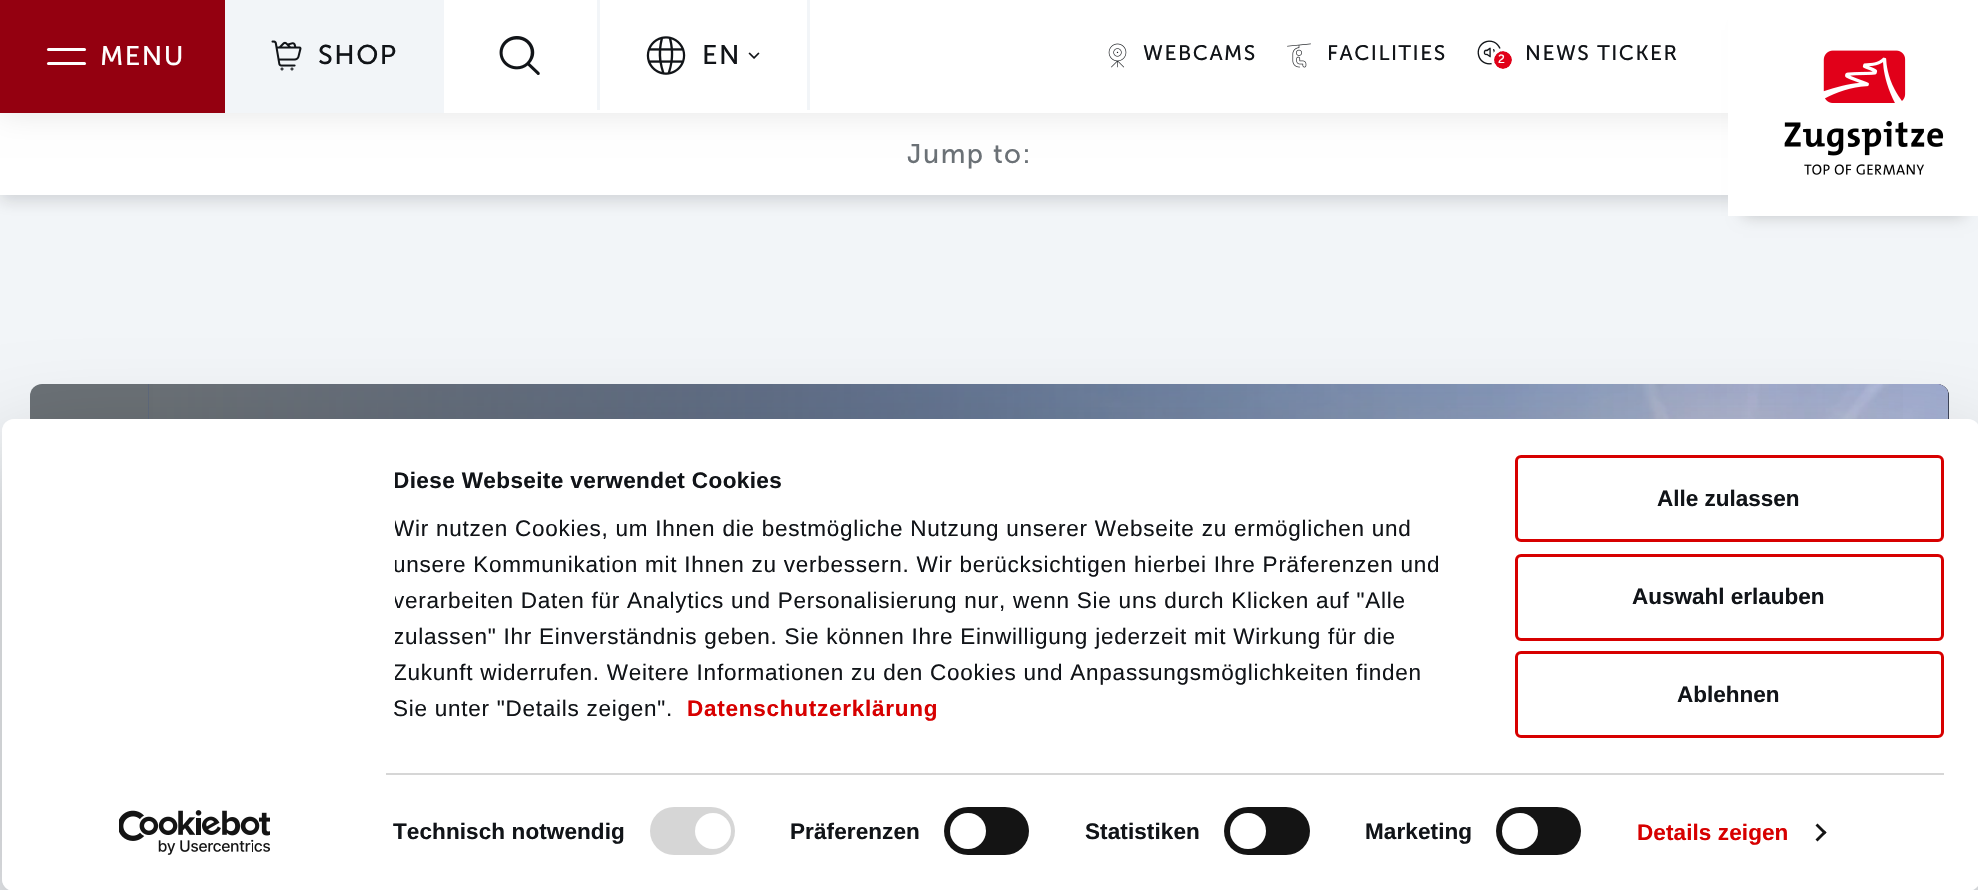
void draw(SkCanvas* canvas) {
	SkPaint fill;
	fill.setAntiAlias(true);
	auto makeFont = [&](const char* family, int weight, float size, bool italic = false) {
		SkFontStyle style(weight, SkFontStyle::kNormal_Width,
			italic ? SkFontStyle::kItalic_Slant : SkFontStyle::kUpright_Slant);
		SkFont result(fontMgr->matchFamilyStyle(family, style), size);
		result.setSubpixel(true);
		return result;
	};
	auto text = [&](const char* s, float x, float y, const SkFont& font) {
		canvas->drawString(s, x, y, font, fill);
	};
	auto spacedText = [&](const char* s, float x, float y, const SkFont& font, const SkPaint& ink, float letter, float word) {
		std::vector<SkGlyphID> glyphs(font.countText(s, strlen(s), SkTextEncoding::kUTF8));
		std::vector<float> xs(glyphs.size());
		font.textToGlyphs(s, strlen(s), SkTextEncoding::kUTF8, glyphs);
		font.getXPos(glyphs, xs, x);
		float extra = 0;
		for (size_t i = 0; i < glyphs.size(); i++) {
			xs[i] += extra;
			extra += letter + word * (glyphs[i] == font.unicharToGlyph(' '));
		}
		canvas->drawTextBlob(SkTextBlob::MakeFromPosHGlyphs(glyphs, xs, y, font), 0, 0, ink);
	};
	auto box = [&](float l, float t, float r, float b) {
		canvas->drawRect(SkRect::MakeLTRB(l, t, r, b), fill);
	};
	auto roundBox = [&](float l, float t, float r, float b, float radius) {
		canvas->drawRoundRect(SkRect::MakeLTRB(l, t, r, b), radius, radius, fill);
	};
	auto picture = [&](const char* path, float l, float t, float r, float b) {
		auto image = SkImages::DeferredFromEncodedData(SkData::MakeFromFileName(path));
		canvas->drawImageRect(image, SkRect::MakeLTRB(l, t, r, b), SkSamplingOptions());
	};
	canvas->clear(0xFFF2F5F8);
	fill.setColor(0x26111418);
	fill.setMaskFilter(SkMaskFilter::MakeBlur(kNormal_SkBlurStyle, 7.5f));
	canvas->drawRect(SkRect::MakeLTRB(0, 119, 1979, 201), fill);
	fill.setMaskFilter(nullptr);
	fill.setColor(0xFFFFFFFF);
	box(0, 113, 1728, 195);
	fill.setColor(0x1A000000);
	fill.setMaskFilter(SkMaskFilter::MakeBlur(kNormal_SkBlurStyle, 15));
	canvas->drawRect(SkRect::MakeLTRB(0, 0, 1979, 113), fill);
	fill.setMaskFilter(nullptr);
	fill.setColor(0xFFFFFFFF);
	box(444, 0, 1728, 113);
	fill.setColor(0xFF940010);
	box(0, 0, 225, 113);
	fill.setColor(0xFFFFFFFF);
	roundBox(47, 48, 86, 51, 1.5f);
	roundBox(47, 62, 86, 65, 1.5f);
	fill.setColor(0xFFF2F5F8);
	box(225, 0, 444, 113);
	picture("image0.png", 271, 40, 302, 71);
	picture("image1.png", 499, 36, 540, 75);
	box(807, 0, 810, 110);
	box(597, 0, 600, 110);
	picture("image2.png", 646, 36, 686, 75);
	picture("image3.png", 748, 52, 760, 59);
	picture("image4.png", 1108, 43, 1127, 68);
	picture("image5.png", 1287, 43, 1311, 68);
	picture("image6.png", 1477, 40, 1502, 65);
	fill.setColor(0xFFE10018);
	canvas->drawCircle(1503, 60, 9, fill);
	fill.setStyle(SkPaint::kStroke_Style);
	fill.setStrokeWidth(3);
	fill.setColor(0xFFFFFFFF);
	canvas->drawCircle(1503, 60, 10.5f, fill);
	fill.setStyle(SkPaint::kFill_Style);
	fill.setColor(0x33000000);
	fill.setMaskFilter(SkMaskFilter::MakeBlur(kNormal_SkBlurStyle, 7.5f));
	canvas->drawRect(SkRect::MakeLTRB(1743, 30, 1964, 216), fill);
	fill.setMaskFilter(nullptr);
	fill.setColor(0xFFFFFFFF);
	box(1728, 0, 1978, 216);
	picture("image7.png", 1784, 50, 1944, 175);
	fill.setColor(0xFF6B7176);
	roundBox(30, 384, 1949, 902, 12);
	fill.setColor(0xFF1D2630);
	canvas->drawPath(SkPathBuilder().moveTo(149, 384).lineTo(1937, 384).cubicTo(1943.5f, 384, 1949, 389.5f, 1949, 396).lineTo(1949, 890).cubicTo(1949, 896.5f, 1943.5f, 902, 1937, 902).lineTo(149, 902).close().detach(), fill);
	picture("image9.png", 1937, 384, 1949, 419);
	picture("image8.png", 148, 384, 1949, 419);
	{
		const SkColor colors[] = {0x006B7176, 0xFF6B7176};
		const float stops[] = {0, 1};
		const SkPoint ends[] = {{1949, 834}, {149, 834}};
		fill.setShader(SkGradientShader::MakeLinear(ends, colors, stops, 2, SkTileMode::kClamp));
		fill.setAlpha(255);
	}
	box(149, 384, 1903, 419);
	canvas->save();
	canvas->clipPath(SkPathBuilder(SkPathFillType::kEvenOdd).moveTo(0, 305).lineTo(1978, 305).lineTo(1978, 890).lineTo(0, 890).close().moveTo(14, 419).lineTo(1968, 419).cubicTo(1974.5f, 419, 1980, 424.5f, 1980, 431).lineTo(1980, 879).cubicTo(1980, 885.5f, 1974.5f, 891, 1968, 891).lineTo(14, 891).cubicTo(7.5f, 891, 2, 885.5f, 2, 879).lineTo(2, 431).cubicTo(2, 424.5f, 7.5f, 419, 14, 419).close().detach(), true);
	fill.setShader(nullptr);
	fill.setColor(0x4D000000);
	fill.setMaskFilter(SkMaskFilter::MakeBlur(kNormal_SkBlurStyle, 52.5f));
	canvas->drawRoundRect(SkRect::MakeLTRB(2, 464, 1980, 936), 12, 12, fill);
	fill.setMaskFilter(nullptr);
	canvas->restore();
	fill.setColor(0xFFFFFFFF);
	roundBox(2, 419, 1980, 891, 12);
	fill.setColor(0xFFD6D6D6);
	box(386, 773, 1944, 775);
	roundBox(650, 807, 735, 855, 24);
	fill.setColor(0xFFFFFFFF);
	canvas->drawCircle(713, 831, 18, fill);
	fill.setColor(0xFF141414);
	roundBox(944, 807, 1029, 855, 24);
	fill.setColor(0xFFFFFFFF);
	canvas->drawCircle(968, 831, 18, fill);
	fill.setColor(0xFF141414);
	roundBox(1224, 807, 1310, 855, 24);
	fill.setColor(0xFFFFFFFF);
	canvas->drawCircle(1248, 831, 18, fill);
	fill.setColor(0xFF141414);
	roundBox(1496, 807, 1581, 855, 24);
	fill.setColor(0xFFFFFFFF);
	canvas->drawCircle(1520, 831, 18, fill);
	fill.setColor(0xFF141414);
	canvas->drawPath(SkPathBuilder().moveTo(1817.5f, 823.5f).lineTo(1826.5f, 832.5f).lineTo(1824.5f, 834.5f).lineTo(1815.5f, 825.5f).close().detach(), fill);
	canvas->drawPath(SkPathBuilder().moveTo(1824.5f, 830.5f).lineTo(1826.5f, 832.5f).lineTo(1817.5f, 841.5f).lineTo(1815.5f, 839.5f).close().detach(), fill);
	fill.setStyle(SkPaint::kStroke_Style);
	fill.setColor(0xFFD70000);
	canvas->drawRoundRect(SkRect::MakeLTRB(1516.5f, 456.5f, 1942.5f, 540.5f), 4.5f, 4.5f, fill);
	canvas->drawRoundRect(SkRect::MakeLTRB(1516.5f, 555.5f, 1942.5f, 639.5f), 4.5f, 4.5f, fill);
	canvas->drawRoundRect(SkRect::MakeLTRB(1516.5f, 652.5f, 1942.5f, 736.5f), 4.5f, 4.5f, fill);
	picture("image10.png", 119, 810, 270, 855);
	auto font1 = makeFont("Museo Sans", 400, 27);
	fill.setStyle(SkPaint::kFill_Style);
	fill.setColor(0xFFFFFFFF);
	spacedText("MENU", 100, 65, font1, fill, 1.5f, 0);
	fill.setColor(0xFF111418);
	spacedText("SHOP", 318, 64, font1, fill, 1.5f, 0);
	spacedText("EN", 702, 64, font1, fill, 1.5f, 0);
	auto font2 = makeFont("Museo Sans", 400, 21);
	spacedText("WEBCAMS", 1143, 60, font2, fill, 1.5f, 0);
	spacedText("FACILITIES", 1327, 60, font2, fill, 1.5f, 0);
	auto font3 = makeFont("Museo Sans", 400, 12);
	fill.setColor(0xFFFFFFFF);
	spacedText("2", 1498, 63, font3, fill, 1.5f, 0);
	fill.setColor(0xFF111418);
	spacedText("NEWS TICKER", 1525, 60, font2, fill, 1.5f, 0);
	fill.setColor(0xFF6B7176);
	spacedText("Jump to:", 907, 163, font1, fill, 1.5f, 0);
	canvas->save();
	canvas->clipRect(SkRect::MakeLTRB(395, 464, 1472, 729));
	auto font4 = makeFont("Liberation Sans", 700, 22.5f);
	fill.setColor(0xFF111418);
	spacedText("Diese Webseite verwendet Cookies", 393, 488, font4, fill, 0.4f, 0);
	auto font5 = makeFont("Liberation Sans", 400, 22.5f);
	spacedText("Wir nutzen Cookies, um Ihnen die bestmögliche Nutzung unserer Webseite zu ermöglichen und", 393, 536, font5, fill, 0.75f, 0);
	spacedText("unsere Kommunikation mit Ihnen zu verbessern. Wir berücksichtigen hierbei Ihre Präferenzen und", 393, 572, font5, fill, 0.75f, 0);
	spacedText("verarbeiten Daten für Analytics und Personalisierung nur, wenn Sie uns durch Klicken auf \"Alle", 393, 608, font5, fill, 0.75f, 0);
	spacedText("zulassen\" Ihr Einverständnis geben. Sie können Ihre Einwilligung jederzeit mit Wirkung für die", 393, 644, font5, fill, 0.75f, 0);
	spacedText("Zukunft widerrufen. Weitere Informationen zu den Cookies und Anpassungsmöglichkeiten finden", 393, 680, font5, fill, 0.75f, 0);
	canvas->restore();
	spacedText("Sie unter \"Details zeigen\".", 393, 716, font5, fill, 0.75f, 0);
	fill.setColor(0xFFD70000);
	spacedText("Datenschutzerklärung", 687, 716, font4, fill, 0.75f, 0);
	fill.setColor(0xFF111418);
	spacedText("Technisch notwendig", 393, 839, font4, fill, 0.1f, 0);
	spacedText("Präferenzen", 790, 839, font4, fill, 0.1f, 0);
	spacedText("Statistiken", 1085, 839, font4, fill, 0.1f, 0);
	spacedText("Marketing", 1365, 839, font4, fill, 0.1f, 0);
	fill.setColor(0xFFD70000);
	spacedText("Details zeigen", 1637, 840, font4, fill, 0.1f, 0);
	fill.setColor(0xFF111418);
	text("Alle zulassen", 1657, 506, font4);
	text("Auswahl erlauben", 1632, 604, font4);
	text("Ablehnen", 1677, 702, font4);
}
